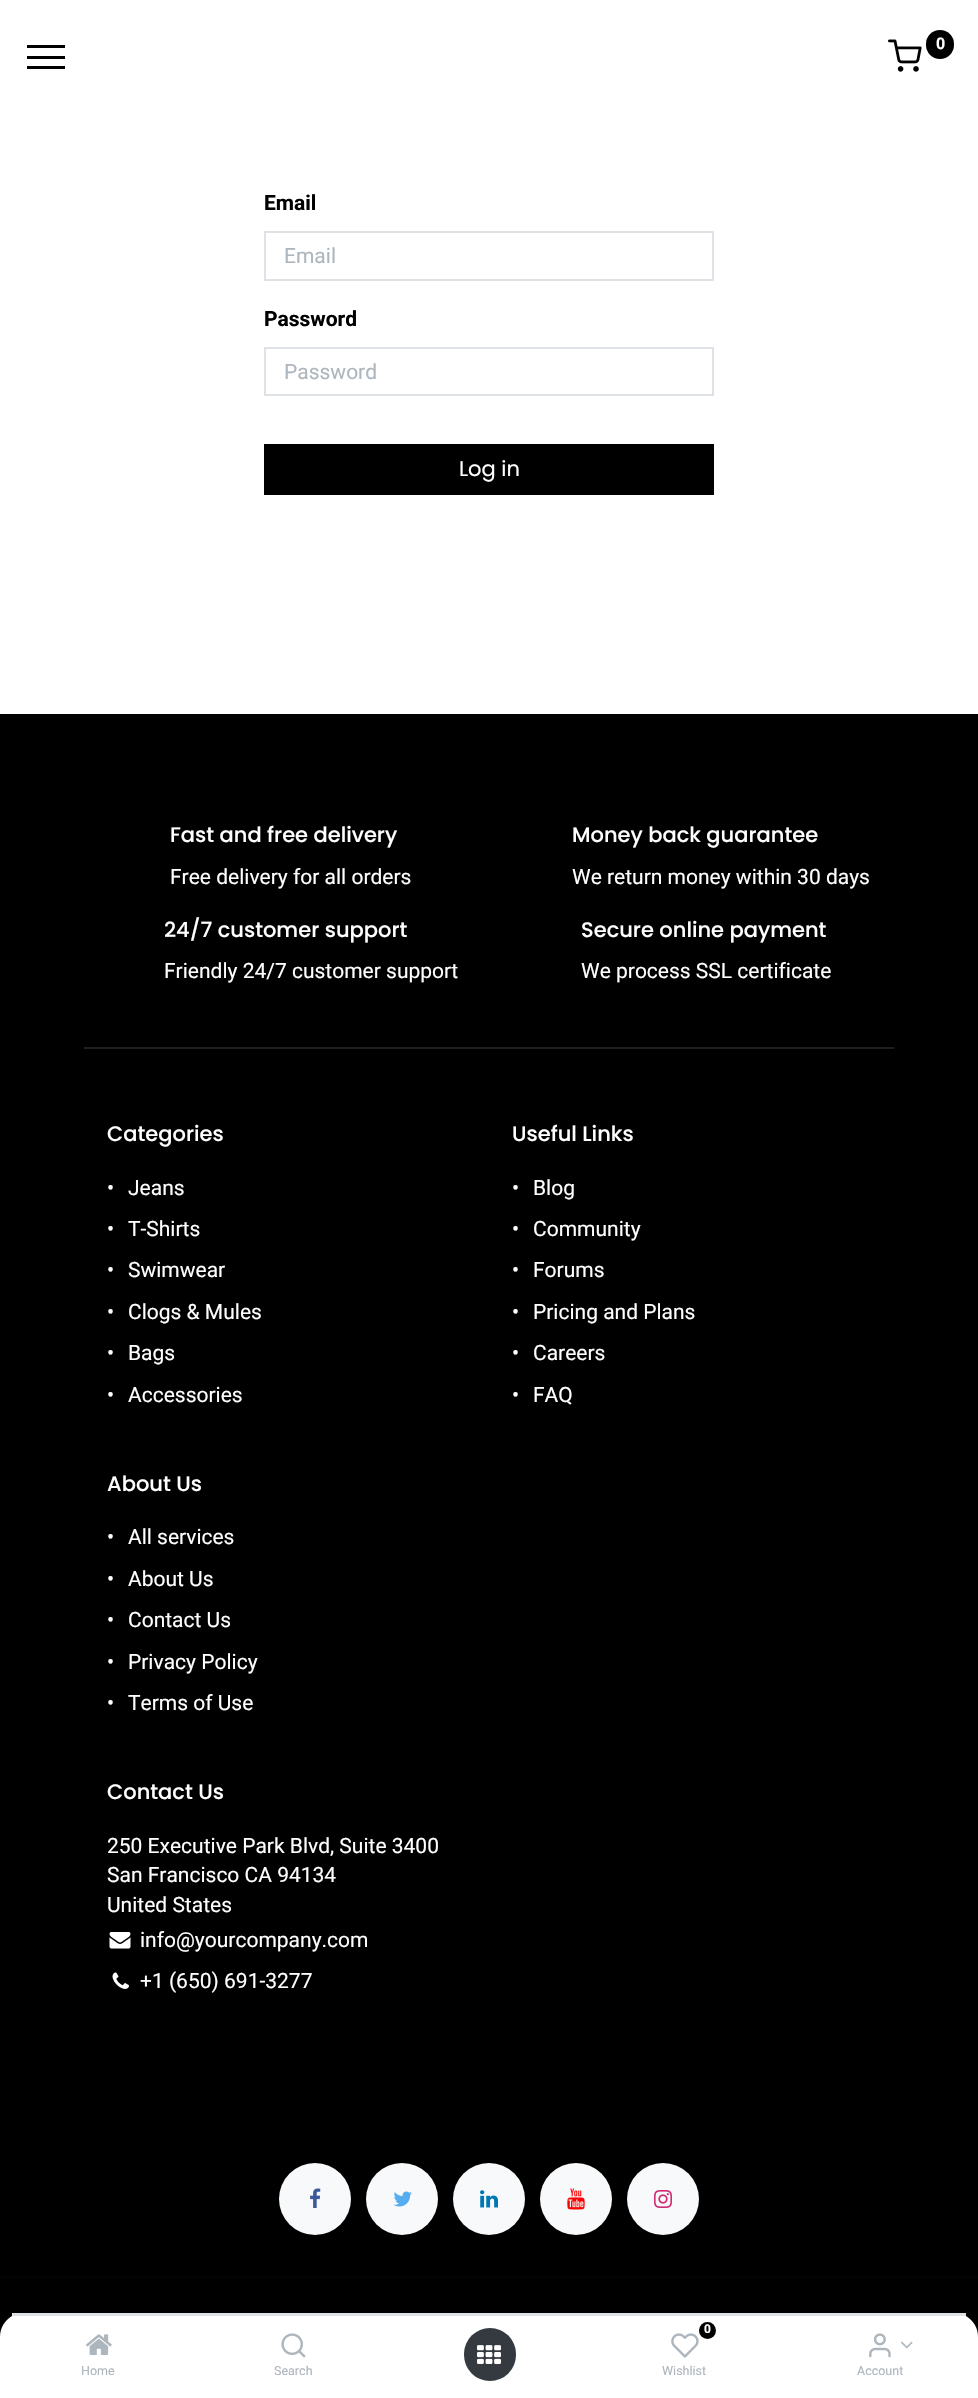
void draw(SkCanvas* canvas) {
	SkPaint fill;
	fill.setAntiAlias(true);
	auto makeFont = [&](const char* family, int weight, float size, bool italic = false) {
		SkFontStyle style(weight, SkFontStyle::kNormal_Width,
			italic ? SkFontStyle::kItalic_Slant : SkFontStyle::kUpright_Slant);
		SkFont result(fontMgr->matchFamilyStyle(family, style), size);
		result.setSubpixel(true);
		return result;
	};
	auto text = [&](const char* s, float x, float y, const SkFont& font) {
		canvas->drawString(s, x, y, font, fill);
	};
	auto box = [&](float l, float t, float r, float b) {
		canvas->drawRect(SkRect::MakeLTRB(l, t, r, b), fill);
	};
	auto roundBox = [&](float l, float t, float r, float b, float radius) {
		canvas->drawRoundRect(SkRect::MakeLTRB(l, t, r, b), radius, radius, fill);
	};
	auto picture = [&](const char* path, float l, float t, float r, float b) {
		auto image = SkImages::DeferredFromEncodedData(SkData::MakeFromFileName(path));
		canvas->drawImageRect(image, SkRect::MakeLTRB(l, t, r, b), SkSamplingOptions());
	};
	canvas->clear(0xFFFFFFFF);
	picture("image0.png", 888, 39, 922, 72);
	fill.setColor(0xFF000000);
	roundBox(926, 30, 954, 59, 14);
	box(27, 45, 65, 48);
	box(27, 56, 65, 59);
	box(27, 66, 65, 69);
	fill.setStyle(SkPaint::kStroke_Style);
	fill.setStrokeWidth(2);
	fill.setColor(0xFFDEE2E6);
	canvas->drawRect(SkRect::MakeLTRB(265, 232, 713, 280), fill);
	canvas->drawRect(SkRect::MakeLTRB(265, 348, 713, 395), fill);
	fill.setStyle(SkPaint::kFill_Style);
	fill.setColor(0xFF000000);
	box(264, 444, 714, 495);
	box(0, 714, 978, 2337);
	fill.setColor(0xFF1F1F1F);
	box(84, 1047, 894, 1049);
	picture("image1.png", 109, 1932, 131, 1949);
	picture("image2.png", 112, 1972, 129, 1989);
	fill.setColor(0xFFF8F9FA);
	canvas->drawCircle(315, 2199, 36, fill);
	picture("image3.png", 310, 2188, 321, 2208);
	canvas->drawCircle(402, 2199, 36, fill);
	picture("image4.png", 393, 2191, 412, 2207);
	canvas->drawCircle(489, 2199, 36, fill);
	picture("image5.png", 480, 2190, 498, 2208);
	canvas->drawCircle(576, 2199, 36, fill);
	picture("image6.png", 567, 2188, 585, 2210);
	canvas->drawCircle(663, 2199, 36, fill);
	picture("image7.png", 654, 2190, 672, 2208);
	fill.setColor(0xFF040405);
	box(0, 2276, 978, 2278);
	fill.setColor(0xFFFFFFFF);
	canvas->drawPath(SkPathBuilder().moveTo(24, 2313).lineTo(954, 2313).cubicTo(967.5f, 2313, 978, 2323.5f, 978, 2337).lineTo(978, 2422).lineTo(0, 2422).lineTo(0, 2337).cubicTo(0, 2323.5f, 10.5f, 2313, 24, 2313).close().detach(), fill);
	fill.setColor(0xFFDEE2E6);
	box(12, 2313, 966, 2316);
	picture("image8.png", 86, 2334, 112, 2355);
	picture("image9.png", 281, 2333, 306, 2358);
	fill.setColor(0xFF343A40);
	roundBox(464, 2328, 516, 2381, 26);
	picture("image10.png", 477, 2345, 501, 2364);
	fill.setColor(0xFF000000);
	canvas->drawCircle(707.5f, 2330.5f, 8.5f, fill);
	picture("image11.png", 671, 2333, 699, 2358);
	picture("image12.png", 869, 2333, 891, 2358);
	picture("image13.png", 901, 2341, 913, 2349);
	auto font1 = makeFont("Roboto", 700, 16);
	fill.setColor(0xFFFFFFFF);
	text("0", 936, 49, font1);
	auto font2 = makeFont("Roboto", 700, 21);
	fill.setColor(0xFF000000);
	text("Email", 264, 210, font2);
	auto font3 = makeFont("Roboto", 400, 21);
	fill.setColor(0xFFADB5BD);
	text("Email", 284, 263, font3);
	fill.setColor(0xFF000000);
	text("Password", 264, 326, font2);
	fill.setColor(0xFFADB5BD);
	text("Password", 284, 379, font3);
	auto font4 = makeFont("Poppins", 400, 21);
	fill.setColor(0xFFFFFFFF);
	text("Log in", 459, 476, font4);
	auto font5 = makeFont("Poppins", 500, 21);
	text("Fast and free delivery", 170, 842, font5);
	text("Free delivery for all orders", 170, 884, font3);
	text("Money back guarantee", 572, 842, font5);
	text("We return money within 30 days", 572, 884, font3);
	text("24/7 customer support", 164, 937, font5);
	text("Friendly 24/7 customer support", 164, 978, font3);
	text("Secure online payment", 581, 937, font5);
	text("We process SSL сertificate", 581, 978, font3);
	text("Categories", 107, 1141, font5);
	text("•", 107, 1195, font3);
	text("Jeans", 128, 1195, font3);
	text("•", 107, 1236, font3);
	text("T-Shirts", 128, 1236, font3);
	text("•", 107, 1277, font3);
	text("Swimwear", 128, 1277, font3);
	text("•", 107, 1319, font3);
	text("Clogs & Mules", 128, 1319, font3);
	text("•", 107, 1360, font3);
	text("Bags", 128, 1360, font3);
	text("•", 107, 1402, font3);
	text("Accessories", 128, 1402, font3);
	text("Useful Links", 512, 1141, font5);
	text("•", 512, 1195, font3);
	text("Blog", 533, 1195, font3);
	text("•", 512, 1236, font3);
	text("Community", 533, 1236, font3);
	text("•", 512, 1277, font3);
	text("Forums", 533, 1277, font3);
	text("•", 512, 1319, font3);
	text("Pricing and Plans", 533, 1319, font3);
	text("•", 512, 1360, font3);
	text("Careers", 533, 1360, font3);
	text("•", 512, 1402, font3);
	text("FAQ", 533, 1402, font3);
	text("About Us", 107, 1491, font5);
	text("•", 107, 1544, font3);
	text("All services", 128, 1544, font3);
	text("•", 107, 1586, font3);
	text("About Us", 128, 1586, font3);
	text("•", 107, 1627, font3);
	text("Contact Us", 128, 1627, font3);
	text("•", 107, 1669, font3);
	text("Privacy Policy", 128, 1669, font3);
	text("•", 107, 1710, font3);
	text("Terms of Use", 128, 1710, font3);
	text("Contact Us", 107, 1799, font5);
	text("250 Executive Park Blvd, Suite 3400", 107, 1853, font3);
	text("San Francisco CA 94134", 107, 1882, font3);
	text("United States", 107, 1912, font3);
	text("info@yourcompany.com", 140, 1947, font3);
	text("+1 (650) 691-3277", 140, 1988, font3);
	auto font6 = makeFont("Roboto", 400, 12.5f);
	fill.setColor(0xFFADB5BD);
	text("Home", 81, 2375, font6);
	text("Search", 274, 2375, font6);
	auto font7 = makeFont("Roboto", 700, 12);
	fill.setColor(0xFFFFFFFF);
	text("0", 704, 2333, font7);
	fill.setColor(0xFFADB5BD);
	text("Wishlist", 662, 2375, font6);
	text("Account", 857, 2375, font6);
}
